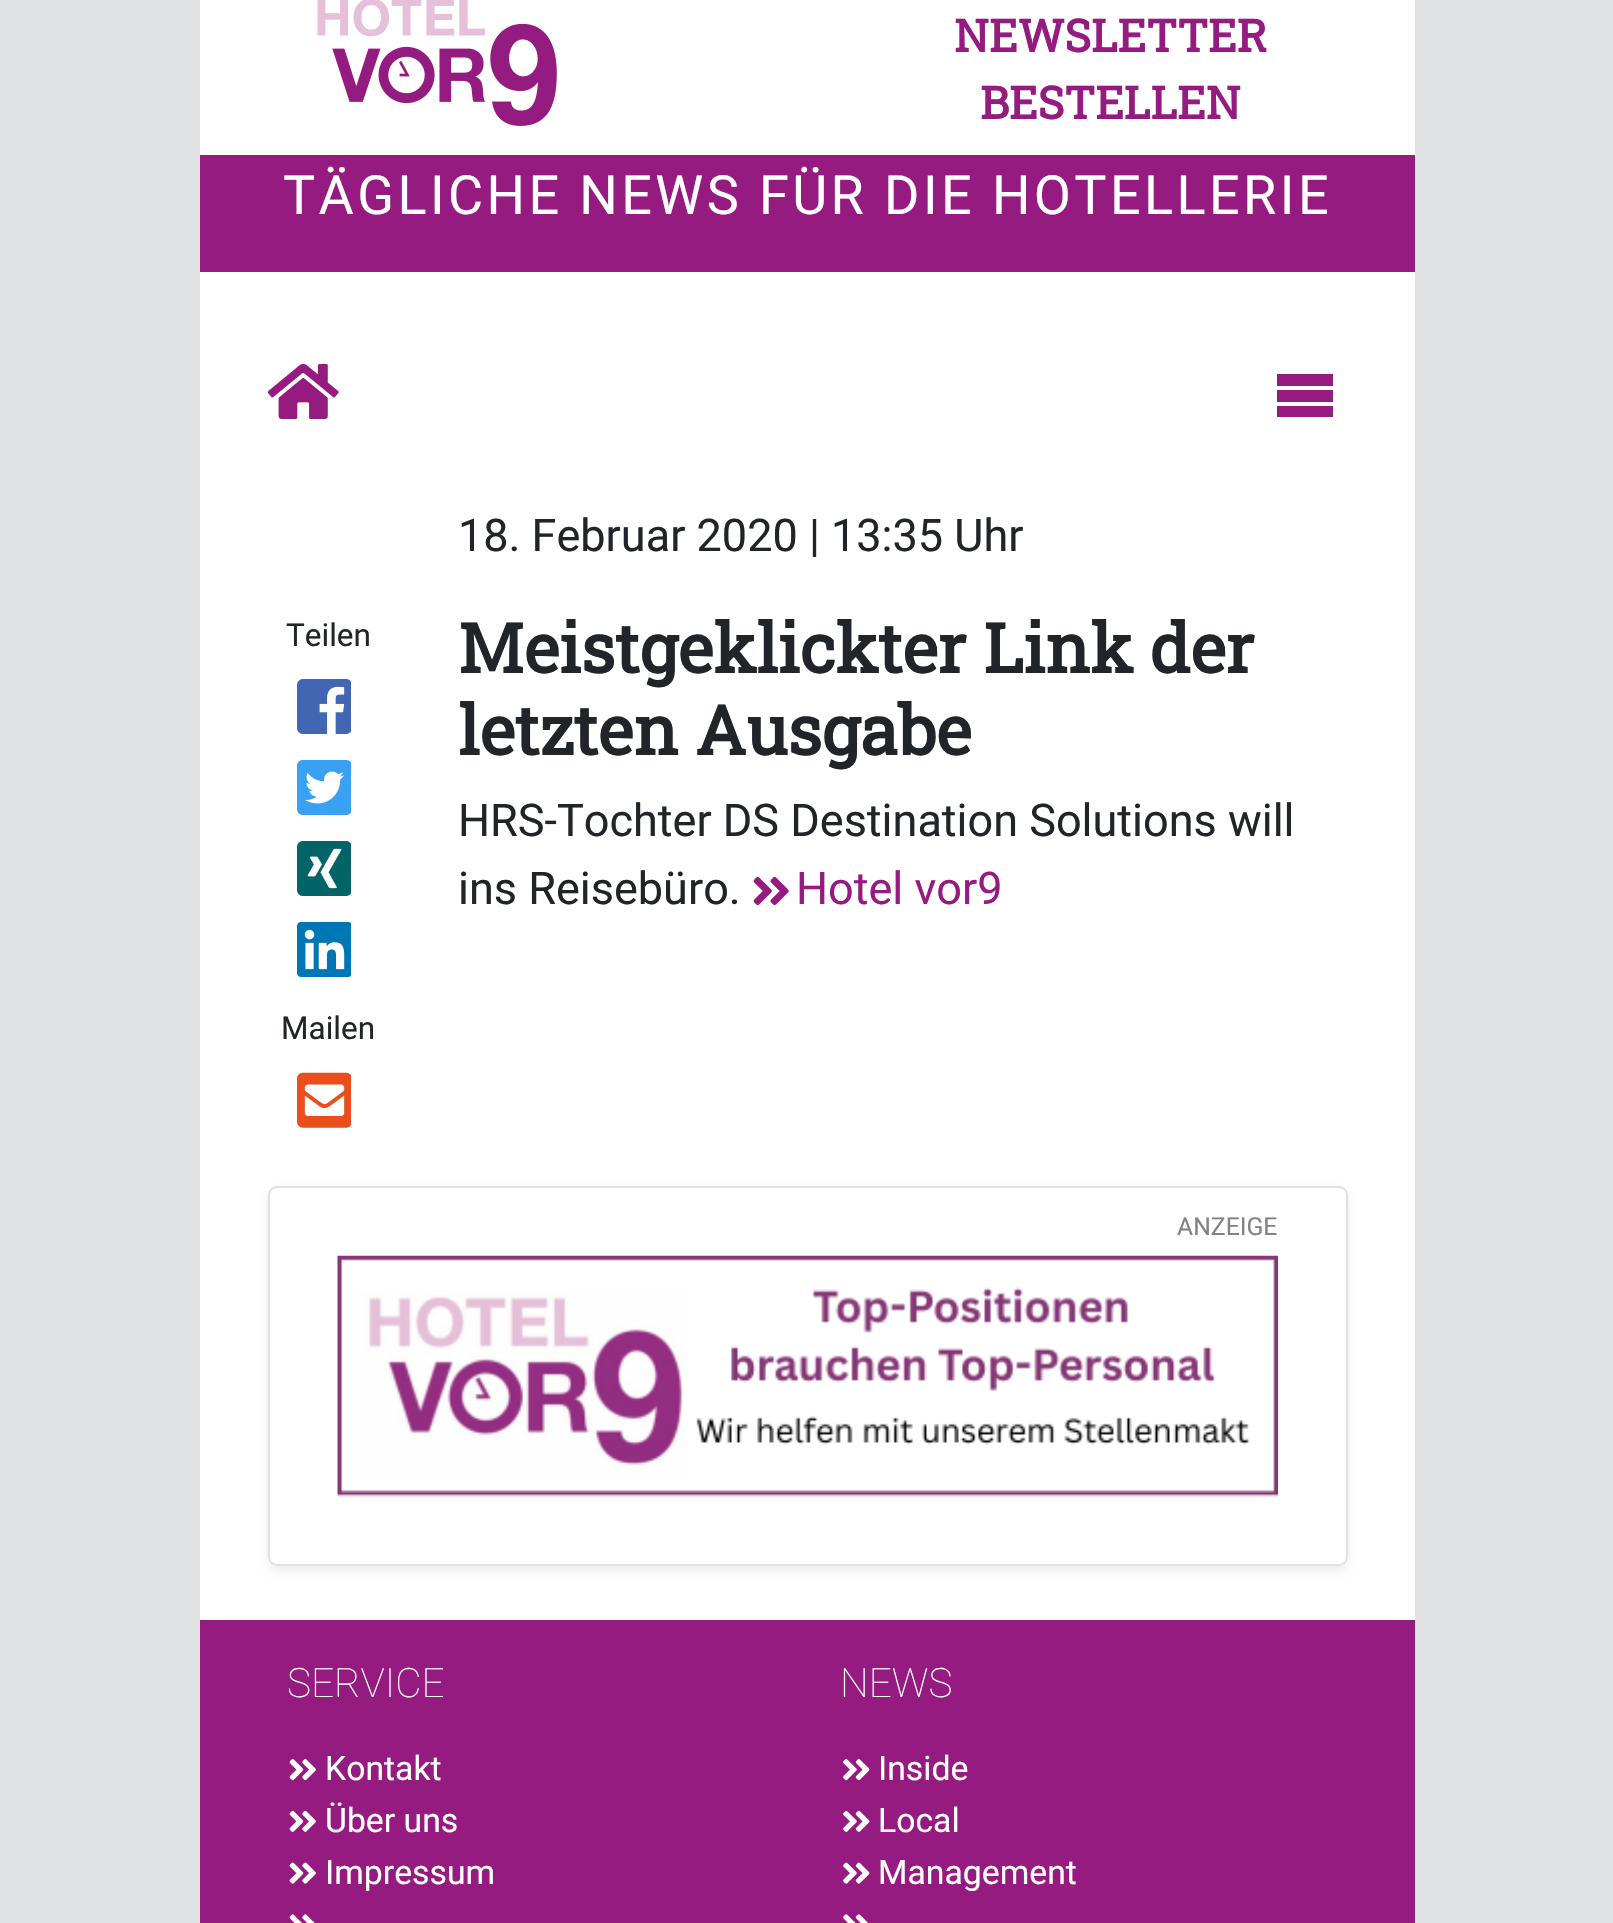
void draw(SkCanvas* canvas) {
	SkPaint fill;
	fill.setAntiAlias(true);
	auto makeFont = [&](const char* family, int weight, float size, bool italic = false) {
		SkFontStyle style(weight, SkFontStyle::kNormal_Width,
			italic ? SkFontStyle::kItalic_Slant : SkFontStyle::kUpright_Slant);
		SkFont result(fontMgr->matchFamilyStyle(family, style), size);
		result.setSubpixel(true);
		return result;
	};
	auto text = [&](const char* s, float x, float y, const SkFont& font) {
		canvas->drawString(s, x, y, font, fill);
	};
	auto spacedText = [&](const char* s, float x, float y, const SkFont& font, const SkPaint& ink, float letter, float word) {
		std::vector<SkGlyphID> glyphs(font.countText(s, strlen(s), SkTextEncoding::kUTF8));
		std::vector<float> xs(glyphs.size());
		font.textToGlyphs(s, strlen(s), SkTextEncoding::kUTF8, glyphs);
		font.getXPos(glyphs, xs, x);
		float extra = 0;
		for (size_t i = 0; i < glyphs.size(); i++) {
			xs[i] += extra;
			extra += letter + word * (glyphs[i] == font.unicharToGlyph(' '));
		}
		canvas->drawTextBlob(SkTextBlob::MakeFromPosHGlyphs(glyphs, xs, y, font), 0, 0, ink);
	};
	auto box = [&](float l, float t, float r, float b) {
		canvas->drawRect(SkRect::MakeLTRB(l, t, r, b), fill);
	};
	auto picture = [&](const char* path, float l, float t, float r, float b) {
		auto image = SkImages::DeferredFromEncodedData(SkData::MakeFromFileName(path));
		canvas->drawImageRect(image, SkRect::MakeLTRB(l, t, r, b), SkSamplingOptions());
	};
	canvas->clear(0xFFE0E1E2);
	fill.setColor(0xFFFFFFFF);
	box(200, 0, 1415, 1620);
	picture("image0.png", 317, 0, 557, 126);
	fill.setColor(0xFF951B81);
	box(200, 155, 1415, 272);
	picture("image1.png", 267, 363, 339, 419);
	canvas->drawPath(SkPathBuilder().moveTo(1277, 374).lineTo(1333, 374).lineTo(1333, 386).lineTo(1277, 386).close().moveTo(1277, 390).lineTo(1333, 390).lineTo(1333, 402).lineTo(1277, 402).close().moveTo(1277, 406).lineTo(1333, 406).lineTo(1333, 417).lineTo(1277, 417).close().detach(), fill);
	picture("image2.png", 297, 679, 351, 734);
	picture("image3.png", 297, 760, 351, 815);
	picture("image4.png", 297, 841, 351, 896);
	picture("image5.png", 297, 922, 351, 977);
	picture("image6.png", 297, 1072, 351, 1128);
	picture("image7.png", 753, 876, 789, 906);
	canvas->save();
	canvas->clipPath(SkPathBuilder(SkPathFillType::kEvenOdd).moveTo(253, 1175).lineTo(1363, 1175).lineTo(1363, 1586).lineTo(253, 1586).close().moveTo(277, 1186).lineTo(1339, 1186).cubicTo(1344, 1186, 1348, 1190, 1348, 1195).lineTo(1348, 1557).cubicTo(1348, 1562, 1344, 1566, 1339, 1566).lineTo(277, 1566).cubicTo(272, 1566, 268, 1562, 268, 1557).lineTo(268, 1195).cubicTo(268, 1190, 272, 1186, 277, 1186).close().detach(), true);
	fill.setColor(0x12000000);
	fill.setMaskFilter(SkMaskFilter::MakeBlur(kNormal_SkBlurStyle, 4.5f));
	canvas->drawRoundRect(SkRect::MakeLTRB(268, 1190, 1348, 1571), 9, 9, fill);
	fill.setMaskFilter(nullptr);
	canvas->restore();
	fill.setStyle(SkPaint::kStroke_Style);
	fill.setStrokeWidth(2);
	fill.setColor(0xFFDEE2E6);
	canvas->drawRoundRect(SkRect::MakeLTRB(269, 1187, 1347, 1565), 8, 8, fill);
	picture("image8.png", 337, 1255, 1278, 1497);
	fill.setStyle(SkPaint::kFill_Style);
	fill.setColor(0xFF951B81);
	box(200, 1620, 1415, 1923);
	picture("image9.png", 289, 1759, 316, 1781);
	picture("image10.png", 289, 1810, 316, 1832);
	picture("image11.png", 289, 1862, 316, 1884);
	picture("image12.png", 289, 1914, 315, 1923);
	picture("image13.png", 843, 1759, 870, 1781);
	picture("image14.png", 843, 1810, 870, 1832);
	picture("image15.png", 843, 1862, 870, 1884);
	picture("image16.png", 843, 1914, 868, 1923);
	auto font1 = makeFont("Roboto Slab", 700, 45);
	text("NEWSLETTER", 954, 52, font1);
	text("BESTELLEN", 980, 119, font1);
	auto font2 = makeFont("Roboto", 400, 54);
	fill.setColor(0xFFFFFFFF);
	spacedText("TÄGLICHE NEWS FÜR DIE HOTELLERIE", 283, 214, font2, fill, 3.4f, 0);
	auto font3 = makeFont("Roboto", 400, 45);
	fill.setColor(0xFF212529);
	text("18. Februar 2020 | 13:35 Uhr", 458, 551, font3);
	auto font4 = makeFont("Roboto", 400, 31.5f);
	text("Teilen", 286, 646, font4);
	text("Mailen", 281, 1039, font4);
	auto font5 = makeFont("Roboto Slab", 700, 68.25f);
	text("Meistgeklickter Link der", 458, 673, font5);
	text("letzten Ausgabe", 458, 755, font5);
	text("HRS-Tochter DS Destination Solutions will", 458, 836, font3);
	text("ins Reisebüro.", 458, 904, font3);
	fill.setColor(0xFF951B81);
	text("Hotel vor9", 796, 904, font3);
	auto font6 = makeFont("Roboto", 400, 24.75f);
	fill.setColor(0xFF808285);
	text("ANZEIGE", 1177, 1235, font6);
	auto font7 = makeFont("Roboto", 100, 40.5f);
	fill.setColor(0xFFFFFFFF);
	text("SERVICE", 287, 1697, font7);
	auto font8 = makeFont("Roboto", 400, 33.75f);
	text("Kontakt", 325, 1780, font8);
	text("Über uns", 325, 1832, font8);
	text("Impressum", 325, 1884, font8);
	text("NEWS", 840, 1697, font7);
	text("Inside", 878, 1780, font8);
	text("Local", 878, 1832, font8);
	text("Management", 878, 1884, font8);
}
